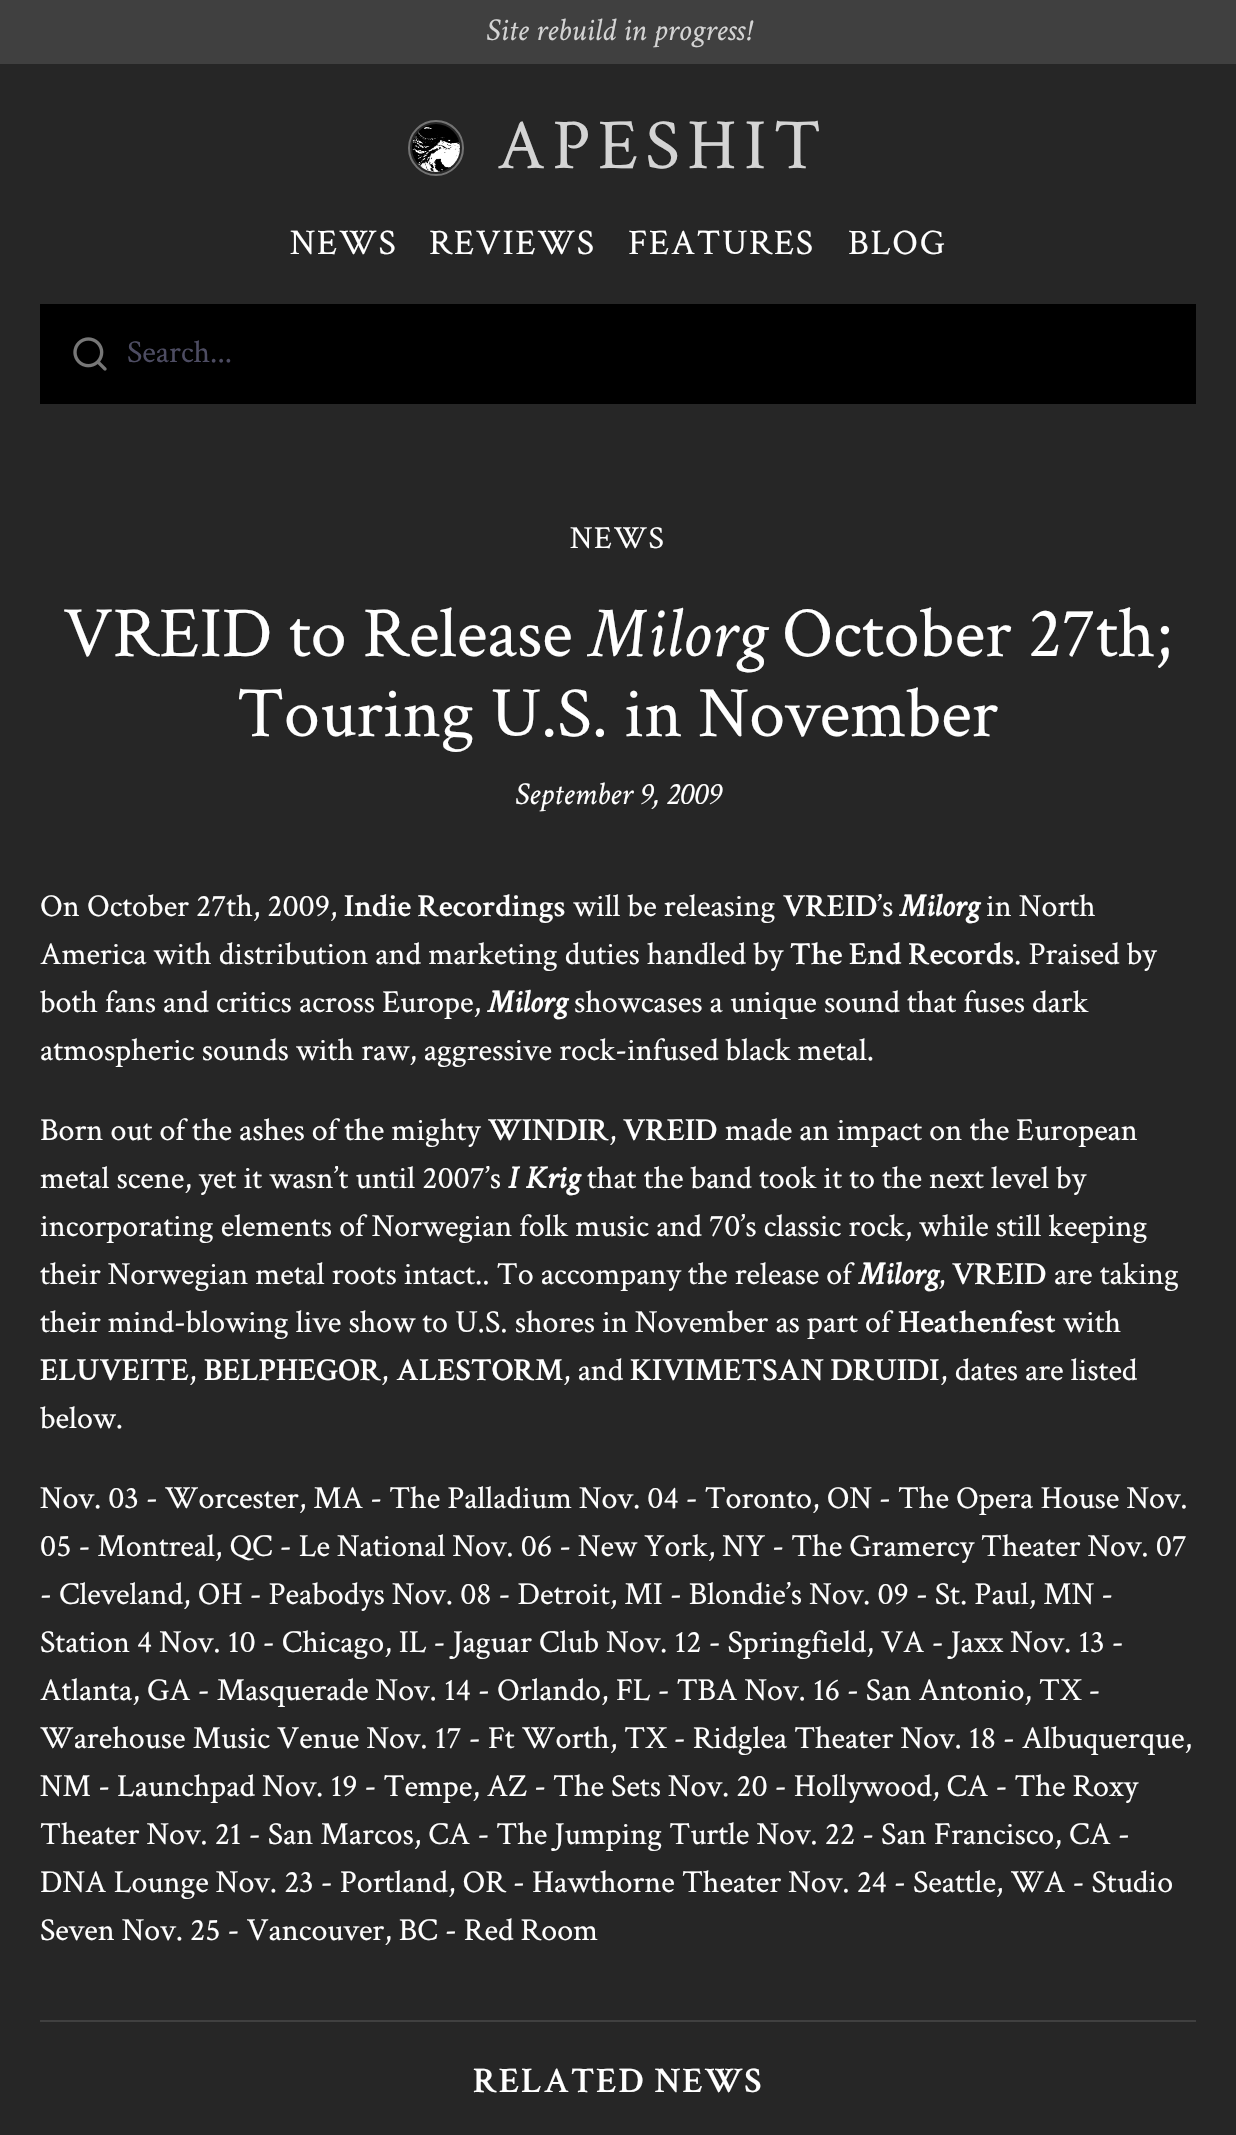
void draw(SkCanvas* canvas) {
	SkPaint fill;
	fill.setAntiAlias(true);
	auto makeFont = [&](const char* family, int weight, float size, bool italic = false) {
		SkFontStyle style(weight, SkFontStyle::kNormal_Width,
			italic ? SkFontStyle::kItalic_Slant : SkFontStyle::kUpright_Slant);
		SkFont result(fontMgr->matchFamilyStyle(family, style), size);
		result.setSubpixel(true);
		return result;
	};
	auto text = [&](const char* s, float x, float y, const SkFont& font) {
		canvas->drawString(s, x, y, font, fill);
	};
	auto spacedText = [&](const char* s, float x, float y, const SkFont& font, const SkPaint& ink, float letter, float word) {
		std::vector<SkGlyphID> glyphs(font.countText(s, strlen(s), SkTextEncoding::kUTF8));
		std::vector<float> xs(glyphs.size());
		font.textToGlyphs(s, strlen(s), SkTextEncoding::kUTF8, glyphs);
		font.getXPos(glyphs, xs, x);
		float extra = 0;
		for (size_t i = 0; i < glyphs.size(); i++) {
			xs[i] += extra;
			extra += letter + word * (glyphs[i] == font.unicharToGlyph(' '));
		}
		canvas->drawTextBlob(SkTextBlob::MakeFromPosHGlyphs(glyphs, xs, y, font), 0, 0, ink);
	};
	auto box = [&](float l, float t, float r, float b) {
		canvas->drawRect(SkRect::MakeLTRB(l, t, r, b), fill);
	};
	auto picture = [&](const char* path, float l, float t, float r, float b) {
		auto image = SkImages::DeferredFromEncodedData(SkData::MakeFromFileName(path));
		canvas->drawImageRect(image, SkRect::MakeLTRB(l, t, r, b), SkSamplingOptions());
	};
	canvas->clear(0xFF262626);
	fill.setColor(0xFF404040);
	box(0, 0, 1236, 64);
	fill.setStyle(SkPaint::kStroke_Style);
	fill.setStrokeWidth(2);
	fill.setColor(0xFF737373);
	canvas->drawCircle(436, 148, 27, fill);
	picture("image0.png", 412, 124, 460, 172);
	fill.setStyle(SkPaint::kFill_Style);
	fill.setColor(0xFF000000);
	box(40, 304, 1196, 404);
	picture("image1.png", 73, 337, 107, 371);
	fill.setColor(0xFF404040);
	box(40, 2020, 1196, 2022);
	auto font1 = makeFont("Crimson Text", 400, 32, true);
	fill.setColor(0xFFD4D4D4);
	text("Site rebuild in progress!", 486, 40, font1);
	auto font2 = makeFont("Crimson Text", 400, 72);
	spacedText("APESHIT", 497, 168, font2, fill, 7.25f, 0);
	auto font3 = makeFont("Crimson Text", 400, 36);
	fill.setColor(0xFFFFFFFF);
	spacedText("NEWS", 290, 254, font3, fill, 1.75f, 0);
	spacedText("REVIEWS", 429, 254, font3, fill, 1.75f, 0);
	spacedText("FEATURES", 628, 254, font3, fill, 1.75f, 0);
	spacedText("BLOG", 848, 254, font3, fill, 1.75f, 0);
	auto font4 = makeFont("Crimson Text", 400, 32);
	fill.setColor(0xFF4D4C62);
	text("Search...", 127, 362, font4);
	fill.setColor(0xFFFFFFFF);
	spacedText("NEWS", 570, 548, font4, fill, 1.5f, 0);
	text("VREID to Release", 63, 656, font2);
	auto font5 = makeFont("Crimson Text", 400, 72, true);
	text("Milorg", 589, 656, font5);
	text("October 27th;", 782, 656, font2);
	text("Touring U.S. in November", 237, 736, font2);
	text("September 9, 2009", 515, 804, font1);
	text("On October 27th, 2009,", 40, 916, font4);
	auto font6 = makeFont("Crimson Text", 600, 32);
	text("Indie Recordings", 344, 916, font6);
	text("will be releasing", 573, 916, font4);
	text("VREID", 783, 916, font6);
	text("’s", 877, 916, font4);
	auto font7 = makeFont("Crimson Text", 700, 32, true);
	text("Milorg", 900, 916, font7);
	text("in North", 986, 916, font4);
	text("America with distribution and marketing duties handled by", 40, 964, font4);
	text("The End Records", 790, 964, font6);
	text(". Praised by", 1014, 964, font4);
	text("both fans and critics across Europe,", 40, 1012, font4);
	text("Milorg", 488, 1012, font7);
	text("showcases a unique sound that fuses dark", 574, 1012, font4);
	text("atmospheric sounds with raw, aggressive rock-infused black metal.", 40, 1060, font4);
	text("Born out of the ashes of the mighty", 40, 1140, font4);
	text("WINDIR", 488, 1140, font6);
	text(",", 609, 1140, font4);
	text("VREID", 623, 1140, font6);
	text("made an impact on the European", 725, 1140, font4);
	text("metal scene, yet it wasn’t until 2007’s", 40, 1188, font4);
	text("I Krig", 508, 1188, font7);
	text("that the band took it to the next level by", 587, 1188, font4);
	text("incorporating elements of Norwegian folk music and 70’s classic rock, while still keeping", 40, 1236, font4);
	text("their Norwegian metal roots intact.. To accompany the release of", 40, 1284, font4);
	text("Milorg", 859, 1284, font7);
	text(",", 938, 1284, font4);
	text("VREID", 952, 1284, font6);
	text("are taking", 1054, 1284, font4);
	text("their mind-blowing live show to U.S. shores in November as part of", 40, 1332, font4);
	text("Heathenfest", 898, 1332, font6);
	text("with", 1063, 1332, font4);
	text("ELUVEITE", 40, 1380, font6);
	text(",", 189, 1380, font4);
	text("BELPHEGOR", 204, 1380, font6);
	text(",", 381, 1380, font4);
	text("ALESTORM", 396, 1380, font6);
	text(", and", 563, 1380, font4);
	text("KIVIMETSAN DRUIDI", 630, 1380, font6);
	text(", dates are listed", 940, 1380, font4);
	text("below.", 40, 1428, font4);
	text("Nov. 03 - Worcester, MA - The Palladium Nov. 04 - Toronto, ON - The Opera House Nov.", 40, 1508, font4);
	text("05 - Montreal, QC - Le National Nov. 06 - New York, NY - The Gramercy Theater Nov. 07", 40, 1556, font4);
	text("- Cleveland, OH - Peabodys Nov. 08 - Detroit, MI - Blondie’s Nov. 09 - St. Paul, MN -", 40, 1604, font4);
	text("Station 4 Nov. 10 - Chicago, IL - Jaguar Club Nov. 12 - Springfield, VA - Jaxx Nov. 13 -", 40, 1652, font4);
	text("Atlanta, GA - Masquerade Nov. 14 - Orlando, FL - TBA Nov. 16 - San Antonio, TX -", 40, 1700, font4);
	text("Warehouse Music Venue Nov. 17 - Ft Worth, TX - Ridglea Theater Nov. 18 - Albuquerque,", 40, 1748, font4);
	text("NM - Launchpad Nov. 19 - Tempe, AZ - The Sets Nov. 20 - Hollywood, CA - The Roxy", 40, 1796, font4);
	text("Theater Nov. 21 - San Marcos, CA - The Jumping Turtle Nov. 22 - San Francisco, CA -", 40, 1844, font4);
	text("DNA Lounge Nov. 23 - Portland, OR - Hawthorne Theater Nov. 24 - Seattle, WA - Studio", 40, 1892, font4);
	text("Seven Nov. 25 - Vancouver, BC - Red Room", 40, 1940, font4);
	auto font8 = makeFont("Crimson Text", 600, 36);
	spacedText("RELATED NEWS", 473, 2092, font8, fill, 1.75f, 0);
}
